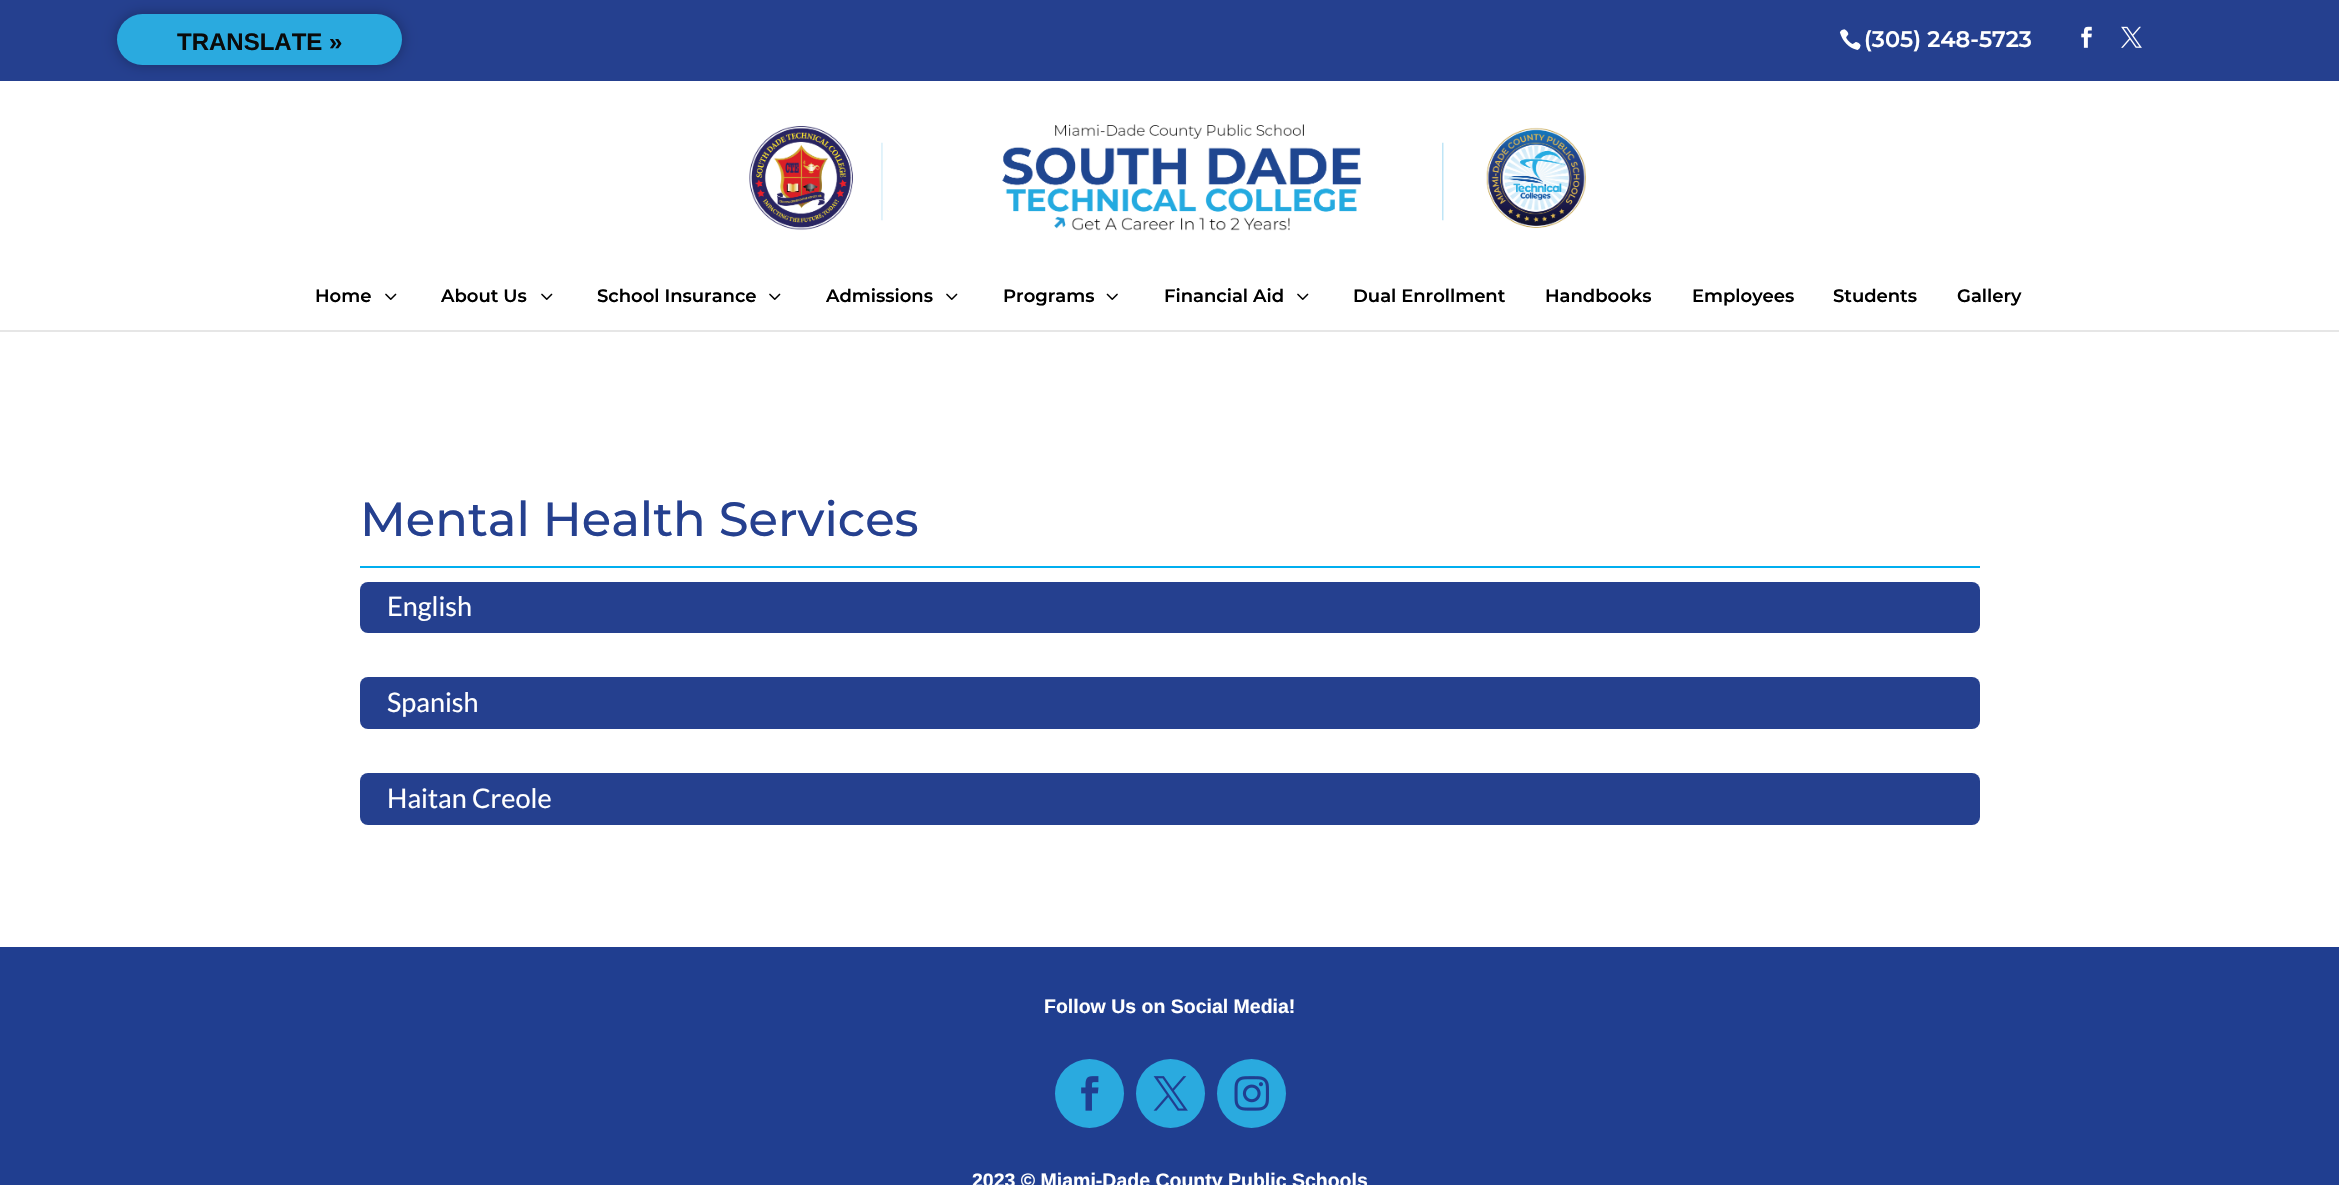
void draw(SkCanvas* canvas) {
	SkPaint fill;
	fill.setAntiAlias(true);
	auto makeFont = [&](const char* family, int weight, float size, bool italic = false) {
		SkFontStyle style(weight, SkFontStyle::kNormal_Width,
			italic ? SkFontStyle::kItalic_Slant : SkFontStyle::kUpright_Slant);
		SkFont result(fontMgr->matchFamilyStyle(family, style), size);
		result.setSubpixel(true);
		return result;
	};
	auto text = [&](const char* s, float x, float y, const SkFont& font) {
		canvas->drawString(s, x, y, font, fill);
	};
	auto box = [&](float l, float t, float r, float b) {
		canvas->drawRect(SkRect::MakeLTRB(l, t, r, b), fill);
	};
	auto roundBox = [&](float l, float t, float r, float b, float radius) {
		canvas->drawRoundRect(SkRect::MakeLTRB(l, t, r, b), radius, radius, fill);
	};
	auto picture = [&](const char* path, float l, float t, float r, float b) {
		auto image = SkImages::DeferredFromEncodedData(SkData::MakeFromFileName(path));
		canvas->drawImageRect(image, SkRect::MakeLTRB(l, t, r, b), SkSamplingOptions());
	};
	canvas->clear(0xFFFFFFFF);
	fill.setColor(0xFF25408F);
	box(0, 0, 2339, 81);
	fill.setColor(0x4D000000);
	fill.setMaskFilter(SkMaskFilter::MakeBlur(kNormal_SkBlurStyle, 7));
	canvas->drawRoundRect(SkRect::MakeLTRB(117, 14, 402, 65), 25.5f, 25.5f, fill);
	fill.setMaskFilter(nullptr);
	fill.setColor(0xFF2AAADF);
	roundBox(117, 14, 402, 65, 25.5f);
	picture("image0.png", 1839, 29, 1861, 50);
	picture("image1.png", 2081, 26, 2092, 48);
	picture("image2.png", 2121, 26, 2142, 48);
	fill.setColor(0xFFE6E6E6);
	box(0, 330, 2339, 332);
	picture("image3.png", 749, 124, 1586, 231);
	picture("image4.png", 385, 293, 397, 300);
	picture("image4.png", 541, 293, 553, 300);
	picture("image4.png", 769, 293, 781, 300);
	picture("image4.png", 946, 293, 958, 300);
	picture("image5.png", 1106, 293, 1118, 300);
	picture("image4.png", 1297, 293, 1309, 300);
	fill.setColor(0xFF00AEEF);
	box(360, 566, 1980, 568);
	fill.setColor(0xFF25408F);
	roundBox(360, 582, 1980, 633, 8);
	roundBox(360, 677, 1980, 729, 8);
	roundBox(360, 773, 1980, 825, 8);
	fill.setColor(0xFF203E90);
	box(0, 947, 2339, 1185);
	fill.setColor(0xFF2AAADF);
	canvas->drawCircle(1089.5f, 1093.5f, 34.5f, fill);
	picture("image6.png", 1081, 1076, 1099, 1111);
	canvas->drawCircle(1170.5f, 1093.5f, 34.5f, fill);
	picture("image7.png", 1153, 1076, 1188, 1111);
	canvas->drawCircle(1251.5f, 1093.5f, 34.5f, fill);
	picture("image8.png", 1234, 1076, 1269, 1111);
	auto font1 = makeFont("Liberation Sans", 700, 24);
	fill.setColor(0xFF0A0A0A);
	text("TRANSLATE »", 177, 50, font1);
	auto font2 = makeFont("Montserrat", 600, 22.5f);
	fill.setColor(0xFFFFFFFF);
	text("(305) 248-5723", 1864, 47, font2);
	auto font3 = makeFont("Montserrat", 600, 18);
	fill.setColor(0xFF000000);
	text("Home", 315, 302, font3);
	text("About Us", 441, 302, font3);
	text("School Insurance", 597, 302, font3);
	text("Admissions", 826, 302, font3);
	text("Programs", 1003, 302, font3);
	text("Financial Aid", 1164, 302, font3);
	text("Dual Enrollment", 1353, 302, font3);
	text("Handbooks", 1545, 302, font3);
	text("Employees", 1692, 302, font3);
	text("Students", 1833, 302, font3);
	text("Gallery", 1957, 302, font3);
	auto font4 = makeFont("Montserrat", 500, 48);
	fill.setColor(0xFF25408F);
	text("Mental Health Services", 360, 536, font4);
	auto font5 = makeFont("Lato", 400, 27);
	fill.setColor(0xFFFFFFFF);
	text("English", 387, 616, font5);
	text("Spanish", 387, 712, font5);
	text("Haitan Creole", 387, 808, font5);
	auto font6 = makeFont("Liberation Sans", 700, 19.5f);
	text("Follow Us on Social Media!", 1044, 1013, font6);
	text("2023 © Miami-Dade County Public Schools", 972, 1187, font6);
}
